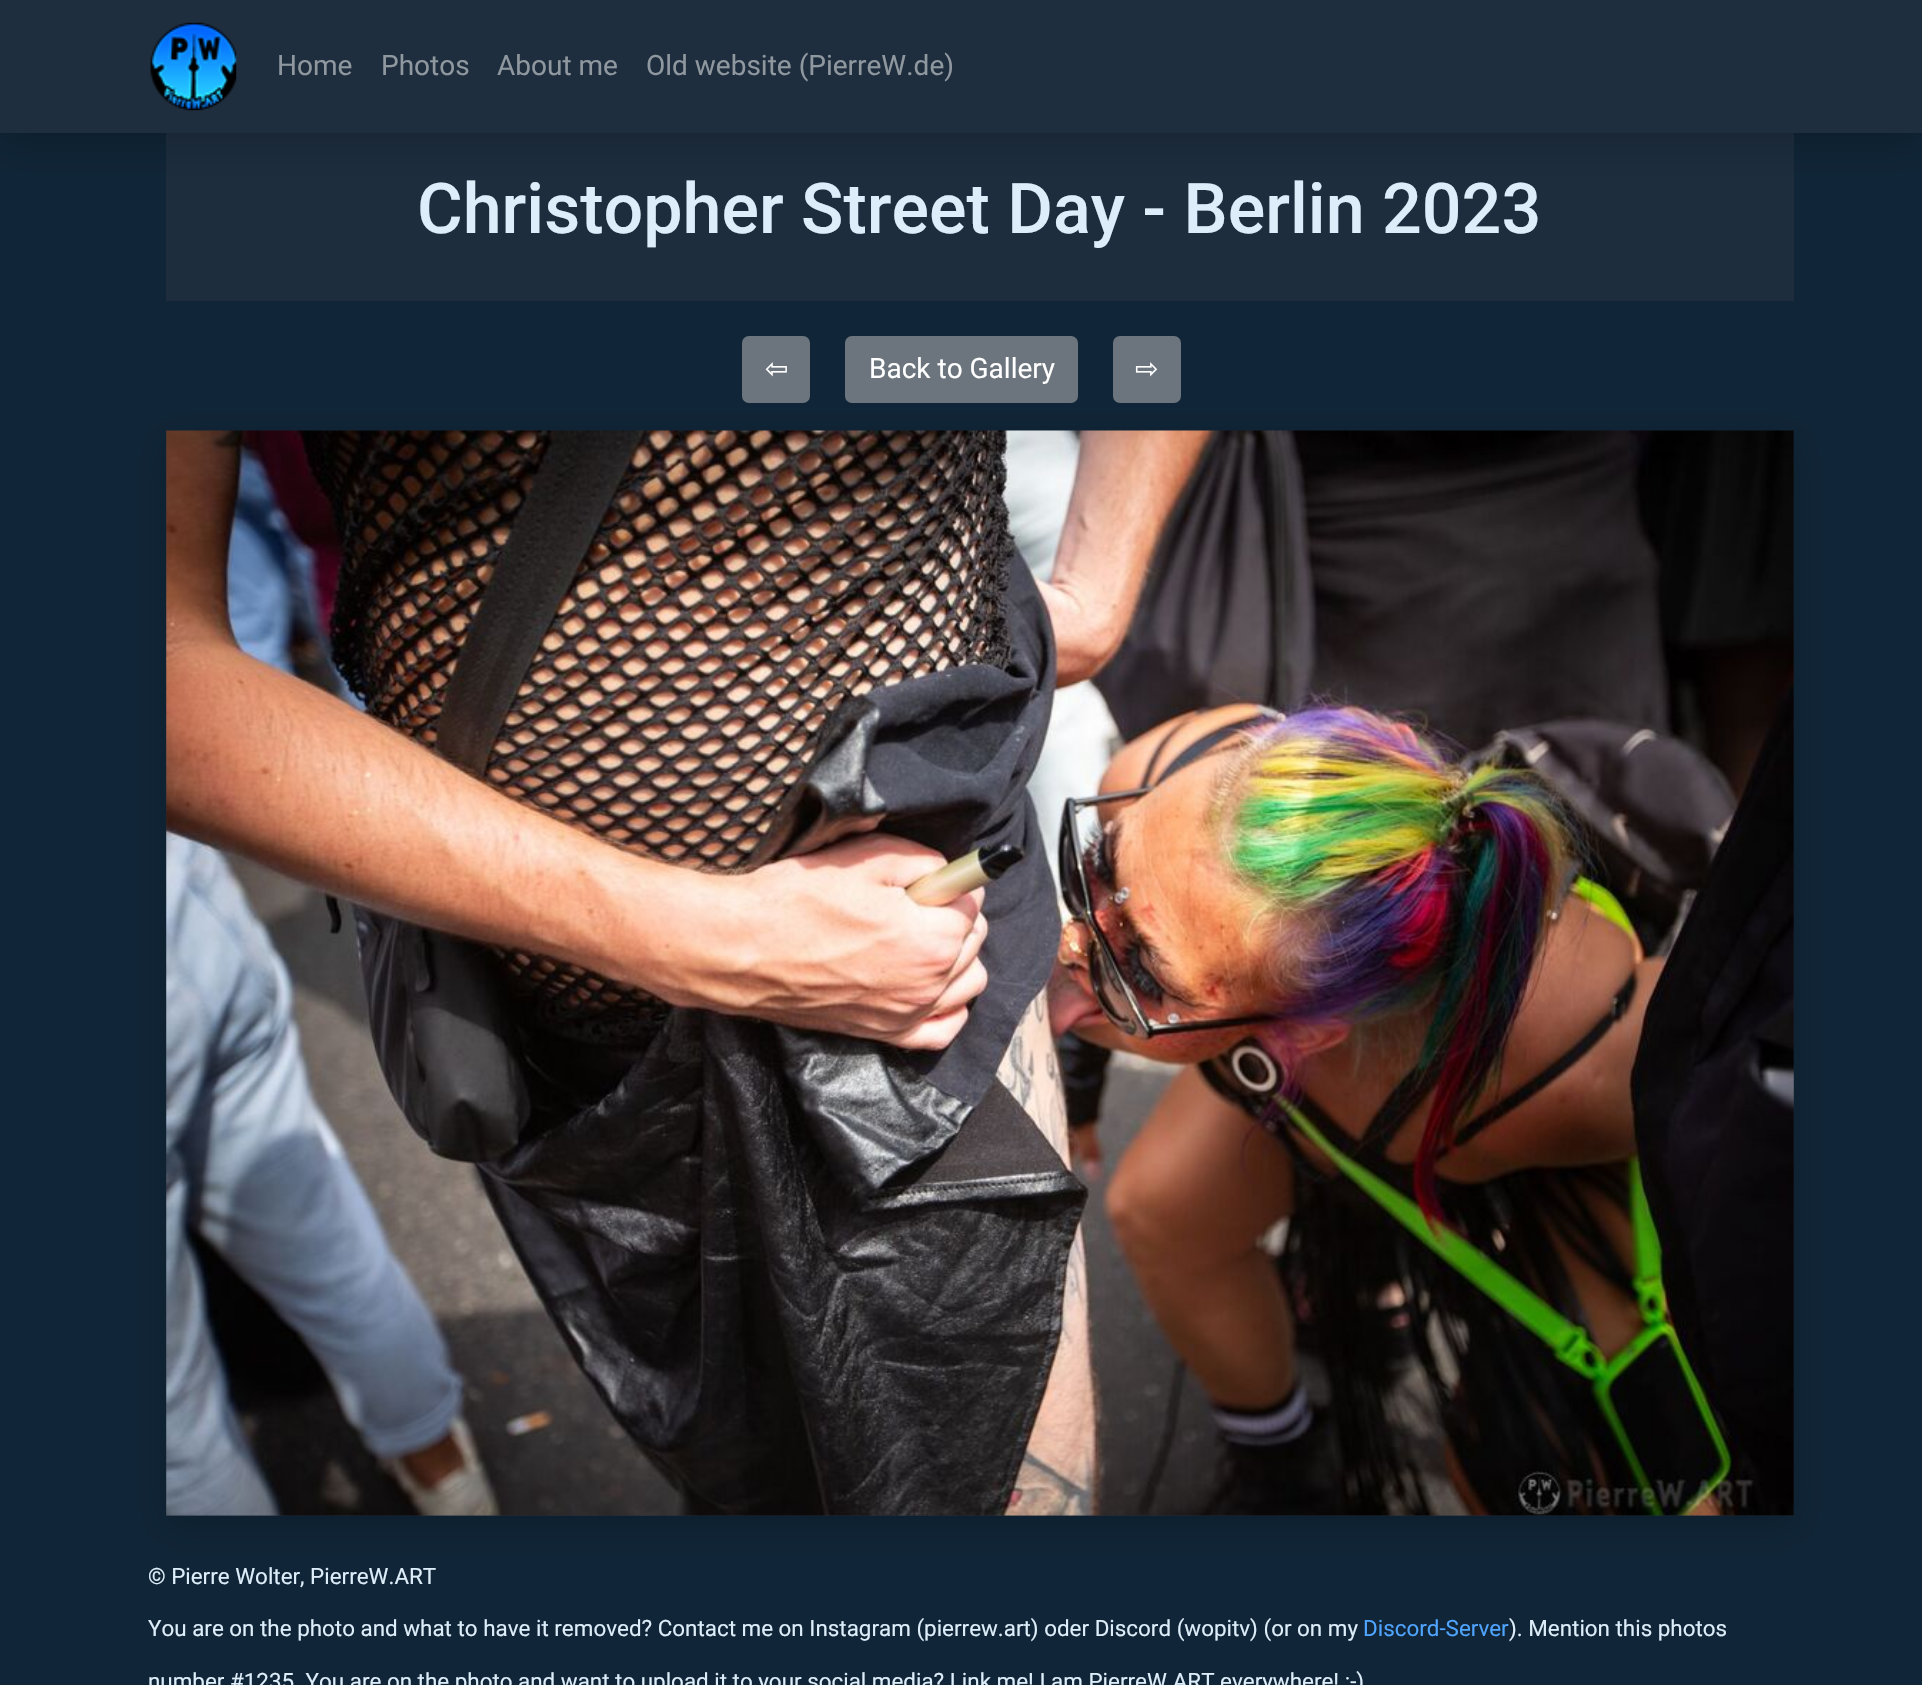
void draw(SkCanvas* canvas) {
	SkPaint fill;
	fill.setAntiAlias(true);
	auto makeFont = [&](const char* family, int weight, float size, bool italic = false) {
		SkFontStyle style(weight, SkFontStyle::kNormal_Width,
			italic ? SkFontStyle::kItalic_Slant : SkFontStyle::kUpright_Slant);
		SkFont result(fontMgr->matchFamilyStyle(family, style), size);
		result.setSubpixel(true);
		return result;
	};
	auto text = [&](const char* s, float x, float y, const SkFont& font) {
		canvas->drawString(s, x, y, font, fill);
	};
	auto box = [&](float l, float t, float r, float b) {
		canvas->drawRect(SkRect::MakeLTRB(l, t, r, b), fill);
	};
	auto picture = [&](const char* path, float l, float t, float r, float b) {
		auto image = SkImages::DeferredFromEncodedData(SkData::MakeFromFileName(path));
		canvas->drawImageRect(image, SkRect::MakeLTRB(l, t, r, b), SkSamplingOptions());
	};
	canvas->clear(0xFF102537);
	fill.setColor(0xD91F2E3E);
	box(166, 133, 1794, 301);
	fill.setColor(0x30000000);
	fill.setMaskFilter(SkMaskFilter::MakeBlur(kNormal_SkBlurStyle, 17.5f));
	canvas->drawRect(SkRect::MakeLTRB(0, 11, 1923, 144), fill);
	fill.setMaskFilter(nullptr);
	fill.setColor(0xFF1F2E3E);
	box(0, 0, 1922, 133);
	picture("image0.png", 150, 22, 237, 111);
	fill.setColor(0x30000000);
	fill.setMaskFilter(SkMaskFilter::MakeBlur(kNormal_SkBlurStyle, 17.5f));
	canvas->drawRect(SkRect::MakeLTRB(166, 441, 1794, 1526), fill);
	fill.setMaskFilter(nullptr);
	fill.setColor(0xFF6C757D);
	canvas->drawRoundRect(SkRect::MakeLTRB(743, 337, 809, 402), 6, 6, fill);
	fill.setStyle(SkPaint::kStroke_Style);
	fill.setStrokeWidth(2);
	canvas->drawRoundRect(SkRect::MakeLTRB(743, 337, 809, 402), 6, 6, fill);
	fill.setStyle(SkPaint::kFill_Style);
	canvas->drawRoundRect(SkRect::MakeLTRB(846, 337, 1077, 402), 6, 6, fill);
	fill.setStyle(SkPaint::kStroke_Style);
	canvas->drawRoundRect(SkRect::MakeLTRB(846, 337, 1077, 402), 6, 6, fill);
	fill.setStyle(SkPaint::kFill_Style);
	canvas->drawRoundRect(SkRect::MakeLTRB(1114, 337, 1180, 402), 6, 6, fill);
	fill.setStyle(SkPaint::kStroke_Style);
	canvas->drawRoundRect(SkRect::MakeLTRB(1114, 337, 1180, 402), 6, 6, fill);
	fill.setStyle(SkPaint::kFill_Style);
	fill.setColor(0xD91F2E3E);
	box(166, 431, 1794, 1516);
	picture("image1.png", 166, 430, 1794, 1516);
	auto font1 = makeFont("Roboto", 400, 28);
	fill.setColor(0xFF8F979F);
	text("Home", 277, 75, font1);
	text("Photos", 381, 75, font1);
	text("About me", 497, 75, font1);
	text("Old website (PierreW.de)", 646, 75, font1);
	auto font2 = makeFont("Roboto", 500, 70);
	fill.setColor(0xFFDDEEFA);
	text("Christopher Street Day - Berlin 2023", 417, 233, font2);
	auto font3 = makeFont("DejaVu Sans", 400, 28);
	fill.setColor(0xFFFFFFFF);
	text("⇦", 765, 378, font3);
	text("Back to Gallery", 869, 378, font1);
	text("⇨", 1135, 378, font3);
	auto font4 = makeFont("Roboto", 400, 22.4f);
	fill.setColor(0xFFDDEEFA);
	text("© Pierre Wolter, PierreW.ART", 148, 1584, font4);
	text("You are on the photo and what to have it removed? Contact me on Instagram (pierrew.art) oder Discord (wopitv) (or on my", 148, 1636, font4);
	fill.setColor(0xFF4FA4FF);
	text("Discord-Server", 1363, 1636, font4);
	fill.setColor(0xFFDDEEFA);
	text("). Mention this photos", 1509, 1636, font4);
	text("number #1235. You are on the photo and want to upload it to your social media? Link me! I am PierreW.ART everywhere! :-)", 148, 1689, font4);
}
